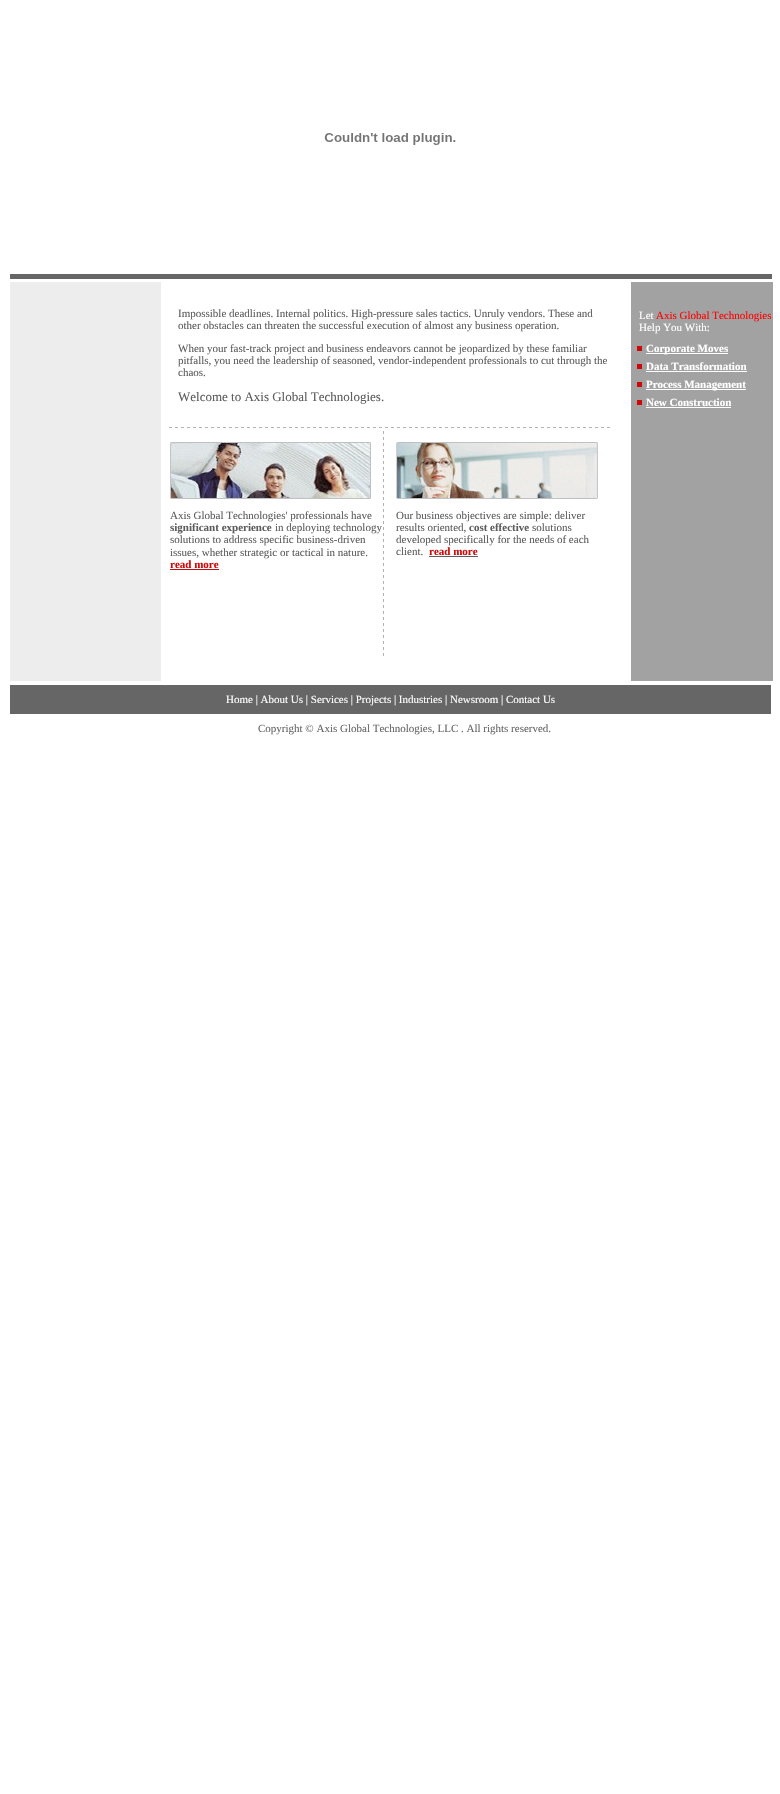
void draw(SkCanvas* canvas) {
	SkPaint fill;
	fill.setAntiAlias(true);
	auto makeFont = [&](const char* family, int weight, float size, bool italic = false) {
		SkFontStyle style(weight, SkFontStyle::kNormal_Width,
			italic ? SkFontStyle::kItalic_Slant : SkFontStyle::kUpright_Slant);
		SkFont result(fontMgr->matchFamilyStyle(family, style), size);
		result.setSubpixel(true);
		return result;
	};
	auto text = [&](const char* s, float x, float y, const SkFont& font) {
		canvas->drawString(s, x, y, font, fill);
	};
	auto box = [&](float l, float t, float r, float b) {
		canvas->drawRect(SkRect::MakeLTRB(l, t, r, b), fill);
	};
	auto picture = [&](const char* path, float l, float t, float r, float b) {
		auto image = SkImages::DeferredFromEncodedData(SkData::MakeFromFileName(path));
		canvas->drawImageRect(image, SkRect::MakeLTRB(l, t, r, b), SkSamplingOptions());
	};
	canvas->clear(0xFFFFFFFF);
	picture("image0.png", 324, 133, 456, 145);
	fill.setColor(0xFF666666);
	box(10, 274, 772, 279);
	picture("image1.png", 10, 274, 11, 279);
	fill.setColor(0xFFEDEDED);
	box(10, 282, 161, 681);
	picture("image2.png", 169, 427, 610, 428);
	picture("image3.png", 383, 431, 384, 656);
	picture("image4.png", 170, 442, 371, 499);
	fill.setColor(0xFFCE0808);
	box(170, 569, 219, 570);
	picture("image5.png", 396, 442, 598, 499);
	fill.setColor(0xFF5E5D5D);
	box(429, 556, 478, 557);
	fill.setColor(0xFFA2A2A2);
	box(631, 282, 773, 681);
	fill.setColor(0xFFCE0809);
	box(637, 346, 642, 351);
	fill.setColor(0xFFFFFFFF);
	box(646, 353, 728, 354);
	fill.setColor(0xFFCE0809);
	box(637, 364, 642, 369);
	fill.setColor(0xFFFFFFFF);
	box(646, 371, 747, 372);
	fill.setColor(0xFFCE0809);
	box(637, 382, 642, 387);
	fill.setColor(0xFFFFFFFF);
	box(646, 389, 746, 390);
	fill.setColor(0xFFCE0809);
	box(637, 400, 642, 405);
	fill.setColor(0xFFFFFFFF);
	box(646, 407, 731, 408);
	fill.setColor(0xFF666666);
	box(10, 685, 771, 714);
	auto font1 = makeFont("Liberation Serif", 400, 11);
	fill.setColor(0xFF5E5D5D);
	text("Impossible deadlines. Internal politics. High-pressure sales tactics. Unruly vendors. These and", 178, 317, font1);
	text("other obstacles can threaten the successful execution of almost any business operation.", 178, 329, font1);
	text("When your fast-track project and business endeavors cannot be jeopardized by these familiar", 178, 352, font1);
	text("pitfalls, you need the leadership of seasoned, vendor-independent professionals to cut through the", 178, 364, font1);
	text("chaos.", 178, 376, font1);
	auto font2 = makeFont("Liberation Serif", 400, 13);
	text("Welcome to Axis Global Technologies.", 178, 401, font2);
	text("Axis Global Technologies' professionals have", 170, 519, font1);
	auto font3 = makeFont("Liberation Serif", 700, 11);
	text("significant experience", 170, 531, font3);
	text("in deploying technology", 275, 531, font1);
	text("solutions to address specific business-driven", 170, 543, font1);
	text("issues, whether strategic or tactical in nature.", 170, 556, font1);
	fill.setColor(0xFFCE0808);
	text("read more", 170, 568, font3);
	fill.setColor(0xFF5E5D5D);
	text("Our business objectives are simple: deliver", 396, 519, font1);
	text("results oriented,", 396, 531, font1);
	text("cost effective", 469, 531, font3);
	text("solutions", 532, 531, font1);
	text("developed specifically for the needs of each", 396, 543, font1);
	text("client.", 396, 555, font1);
	fill.setColor(0xFFCE0808);
	text("read more", 429, 555, font3);
	fill.setColor(0xFFFFFFFF);
	text("Let", 639, 319, font1);
	fill.setColor(0xFFFF0000);
	text("Axis Global Technologies", 656, 319, font1);
	fill.setColor(0xFFFFFFFF);
	text("Help You With:", 639, 331, font1);
	text("Corporate Moves", 646, 352, font3);
	text("Data Transformation", 646, 370, font3);
	text("Process Management", 646, 388, font3);
	text("New Construction", 646, 406, font3);
	text("Home | About Us | Services | Projects | Industries | Newsroom | Contact Us", 226, 703, font1);
	fill.setColor(0xFF666666);
	text("Copyright © Axis Global Technologies, LLC . All rights reserved.", 258, 732, font1);
}
